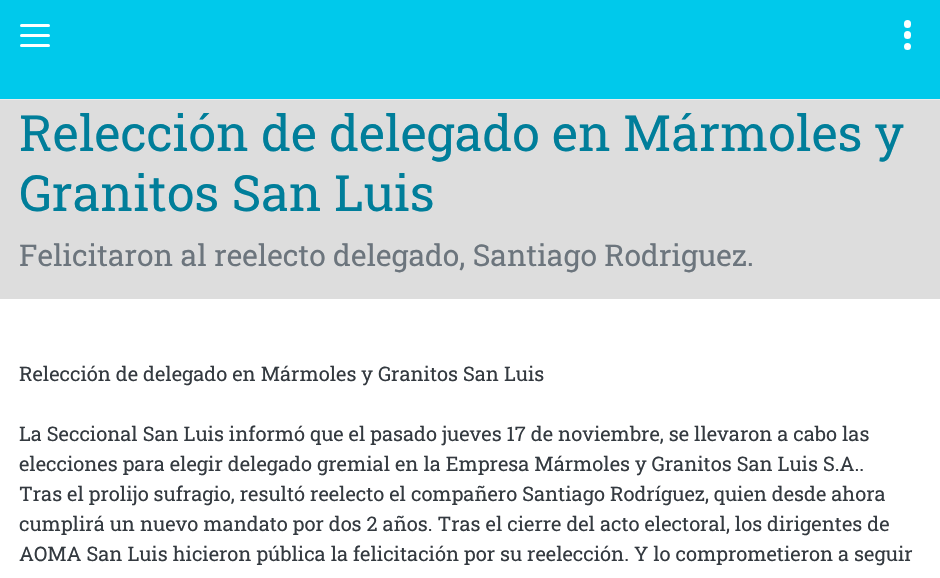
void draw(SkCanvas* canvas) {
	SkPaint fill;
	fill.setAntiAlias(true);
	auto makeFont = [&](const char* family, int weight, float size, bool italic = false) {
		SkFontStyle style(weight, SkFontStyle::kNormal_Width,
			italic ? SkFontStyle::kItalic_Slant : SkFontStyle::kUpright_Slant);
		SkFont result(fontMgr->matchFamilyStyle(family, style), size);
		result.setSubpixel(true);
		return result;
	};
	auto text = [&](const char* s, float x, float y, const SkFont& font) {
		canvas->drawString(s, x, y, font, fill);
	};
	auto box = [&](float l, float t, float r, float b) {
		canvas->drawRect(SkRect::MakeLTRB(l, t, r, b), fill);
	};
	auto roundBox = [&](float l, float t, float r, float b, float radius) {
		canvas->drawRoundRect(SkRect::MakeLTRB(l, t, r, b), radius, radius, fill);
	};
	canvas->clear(0xFFFFFFFF);
	fill.setColor(0xFF00C9EB);
	box(0, 0, 940, 99);
	fill.setColor(0xFFEAECED);
	box(0, 99, 940, 100);
	fill.setColor(0xFFFFFFFF);
	roundBox(20, 34, 50, 37, 1.5f);
	roundBox(20, 24, 50, 27, 1.5f);
	roundBox(20, 44, 50, 47, 1.5f);
	roundBox(904, 31, 911, 39, 3.5f);
	roundBox(904, 20, 911, 28, 3.5f);
	canvas->drawCircle(907.5f, 46.5f, 3.5f, fill);
	fill.setColor(0xFFDDDDDD);
	box(0, 100, 940, 299);
	auto font1 = makeFont("Roboto Slab", 400, 50);
	fill.setColor(0xFF007E9A);
	text("Relección de delegado en Mármoles y", 19, 151, font1);
	text("Granitos San Luis", 19, 211, font1);
	auto font2 = makeFont("Roboto Slab", 400, 30);
	fill.setColor(0xFF6C757D);
	text("Felicitaron al reelecto delegado, Santiago Rodriguez.", 19, 266, font2);
	auto font3 = makeFont("Roboto Slab", 400, 20);
	fill.setColor(0xFF343A40);
	text("Relección de delegado en Mármoles y Granitos San Luis", 19, 381, font3);
	text("La Seccional San Luis informó que el pasado jueves 17 de noviembre, se llevaron a cabo las", 19, 441, font3);
	text("elecciones para elegir delegado gremial en la Empresa Mármoles y Granitos San Luis S.A..", 19, 471, font3);
	text("Tras el prolijo sufragio, resultó reelecto el compañero Santiago Rodríguez, quien desde ahora", 19, 501, font3);
	text("cumplirá un nuevo mandato por dos 2 años. Tras el cierre del acto electoral, los dirigentes de", 19, 531, font3);
	text("AOMA San Luis hicieron pública la felicitación por su reelección. Y lo comprometieron a seguir", 19, 561, font3);
}
